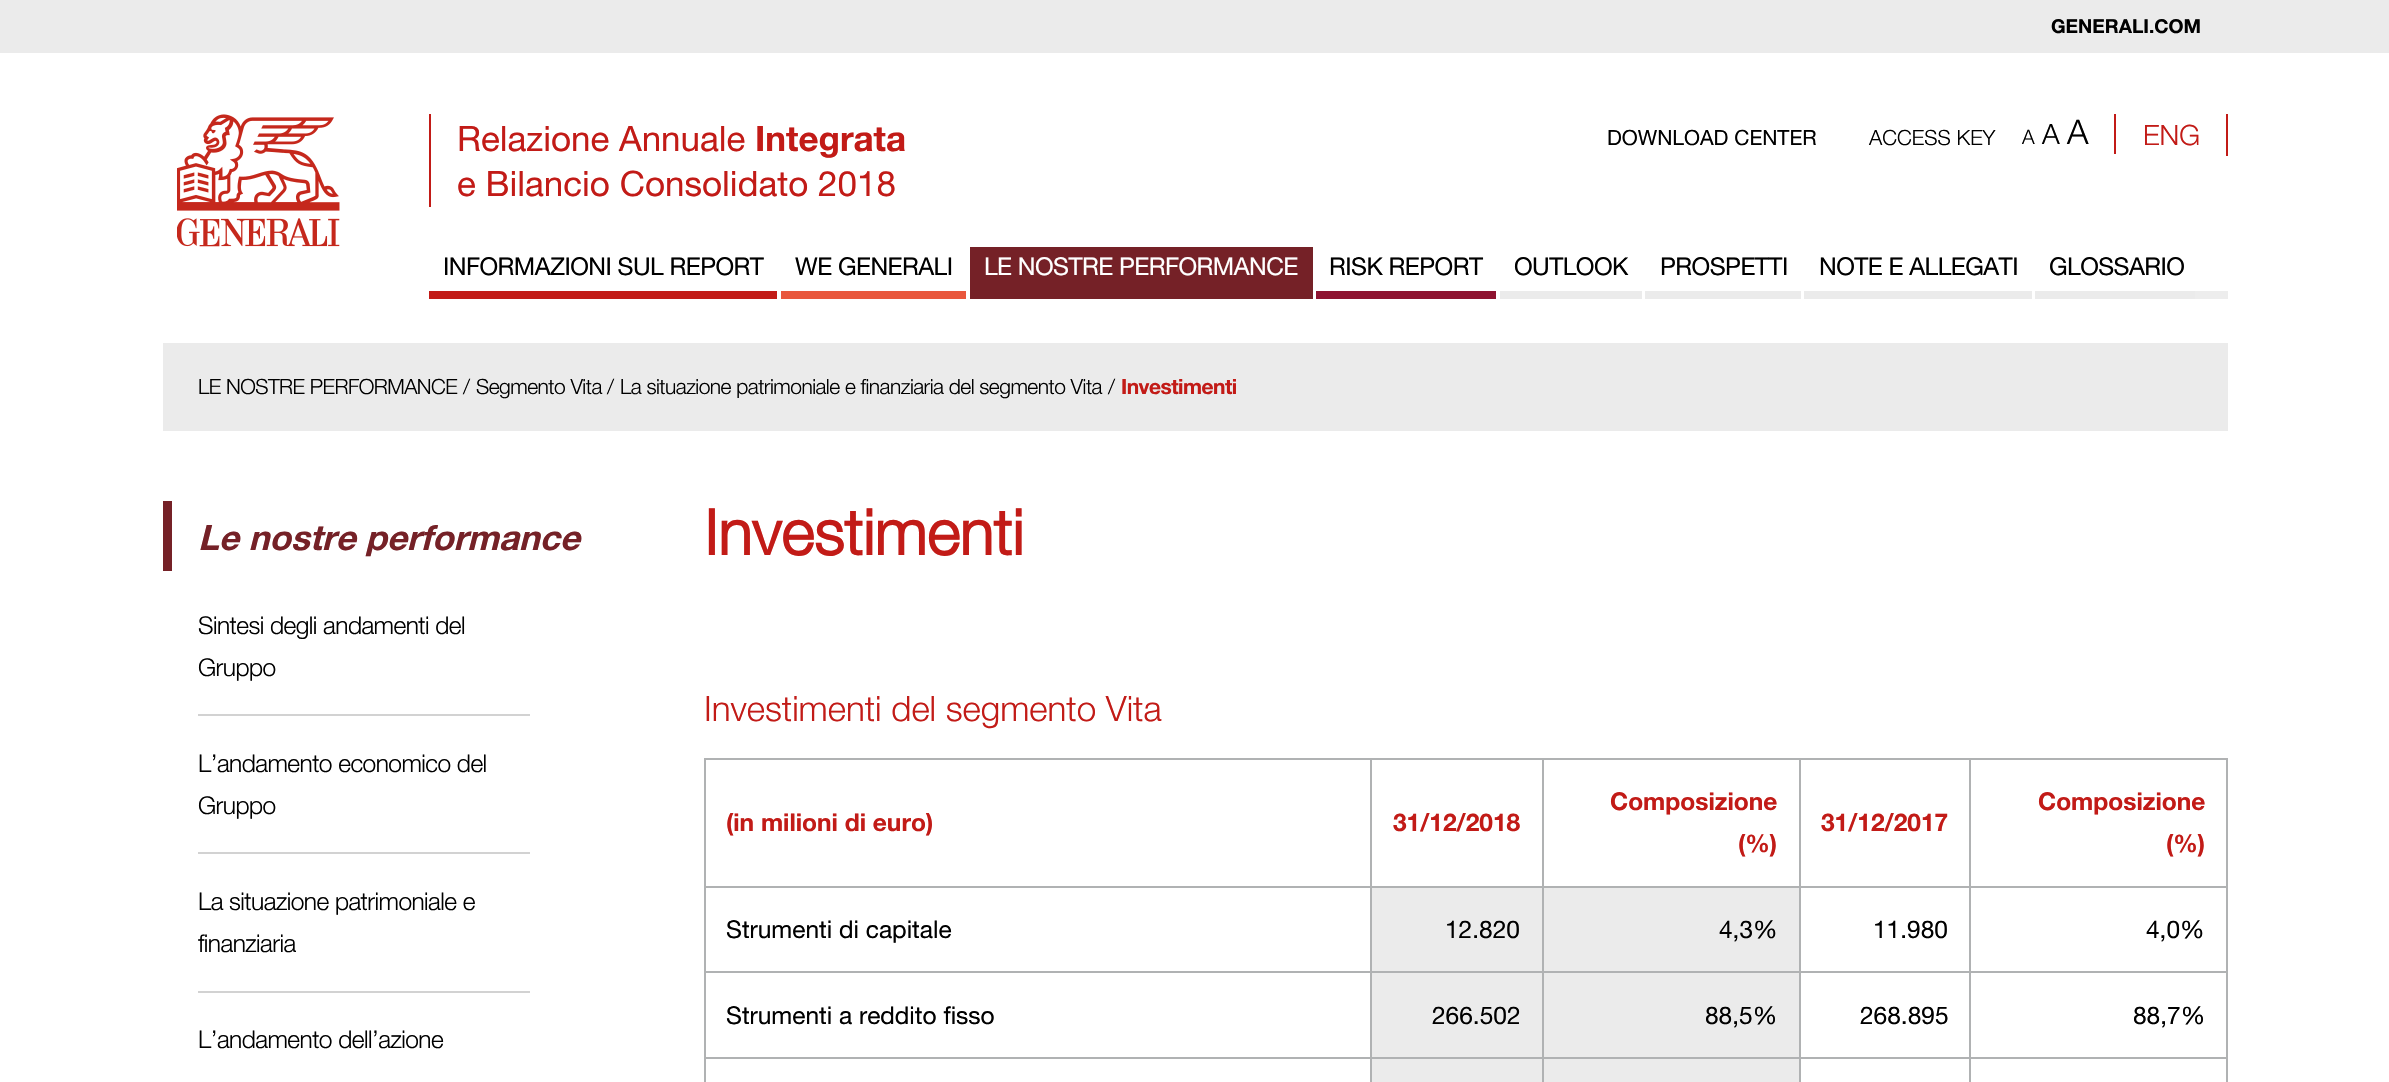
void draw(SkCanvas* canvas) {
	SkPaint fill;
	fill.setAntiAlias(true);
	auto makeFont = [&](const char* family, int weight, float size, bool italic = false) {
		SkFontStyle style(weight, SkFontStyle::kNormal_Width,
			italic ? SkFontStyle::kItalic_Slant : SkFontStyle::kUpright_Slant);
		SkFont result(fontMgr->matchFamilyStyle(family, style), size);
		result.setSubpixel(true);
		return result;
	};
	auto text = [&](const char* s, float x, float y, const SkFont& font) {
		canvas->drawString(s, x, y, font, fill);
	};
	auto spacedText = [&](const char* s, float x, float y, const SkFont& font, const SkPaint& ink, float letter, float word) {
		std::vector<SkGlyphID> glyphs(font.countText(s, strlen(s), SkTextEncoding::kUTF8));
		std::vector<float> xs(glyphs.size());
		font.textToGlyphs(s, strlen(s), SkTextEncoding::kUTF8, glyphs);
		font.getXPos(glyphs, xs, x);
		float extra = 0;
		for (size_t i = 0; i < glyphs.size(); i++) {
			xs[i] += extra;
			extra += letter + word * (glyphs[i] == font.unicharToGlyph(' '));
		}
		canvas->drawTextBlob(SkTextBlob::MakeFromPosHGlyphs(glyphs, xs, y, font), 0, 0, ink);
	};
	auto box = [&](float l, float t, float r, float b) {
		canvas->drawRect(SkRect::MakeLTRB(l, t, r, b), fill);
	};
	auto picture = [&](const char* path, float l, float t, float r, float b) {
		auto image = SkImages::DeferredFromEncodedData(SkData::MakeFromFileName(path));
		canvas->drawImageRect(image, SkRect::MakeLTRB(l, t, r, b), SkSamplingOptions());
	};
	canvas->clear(0xFFFFFFFF);
	fill.setColor(0xFFEBEBEB);
	box(0, 0, 2389, 53);
	picture("image0.png", 177, 114, 340, 247);
	fill.setColor(0xFFC21B17);
	box(429, 114, 431, 207);
	box(2114, 114, 2116, 154);
	box(2226, 114, 2228, 156);
	box(429, 291, 777, 299);
	fill.setColor(0xFFE9573D);
	box(781, 291, 966, 299);
	fill.setColor(0xFF752127);
	box(970, 247, 1313, 299);
	fill.setColor(0xFF8E1230);
	box(1316, 291, 1496, 299);
	fill.setColor(0xFFEBEBEB);
	box(1500, 291, 1642, 299);
	box(1645, 291, 1801, 299);
	box(1804, 291, 2032, 299);
	box(2035, 291, 2198, 299);
	fill.setColor(0xFFEDEDED);
	box(2195, 291, 2228, 299);
	fill.setColor(0xFFEBEBEB);
	box(163, 343, 2228, 431);
	fill.setColor(0xFF752127);
	box(163, 501, 172, 571);
	fill.setColor(0xFFD2D2D2);
	box(198, 714, 530, 716);
	box(198, 852, 530, 854);
	box(198, 991, 530, 993);
	fill.setColor(0xFFB0B2B3);
	box(704, 758, 2228, 760);
	box(2226, 758, 2228, 1082);
	box(704, 758, 706, 1082);
	box(704, 886, 2228, 888);
	box(704, 971, 2228, 973);
	box(704, 1057, 2228, 1059);
	box(1370, 758, 1372, 1082);
	fill.setColor(0xFFEBEBEB);
	box(1372, 1059, 1542, 1082);
	fill.setColor(0xFFB0B2B3);
	box(1542, 758, 1544, 1082);
	fill.setColor(0xFFEBEBEB);
	box(1544, 1059, 1799, 1082);
	fill.setColor(0xFFB0B2B3);
	box(1799, 758, 1801, 1082);
	box(1969, 758, 1971, 1082);
	fill.setColor(0xFFEBEBEB);
	box(1372, 888, 1542, 971);
	box(1544, 888, 1799, 971);
	box(1372, 973, 1542, 1057);
	box(1544, 973, 1799, 1057);
	auto font1 = makeFont("Helvetica", 700, 19.25f);
	fill.setColor(0xFF000000);
	text("GENERALI.COM", 2051, 33, font1);
	auto font2 = makeFont("Helvetica", 400, 35);
	fill.setColor(0xFFC21B17);
	text("Relazione Annuale", 457, 151, font2);
	auto font3 = makeFont("Helvetica", 700, 35);
	text("Integrata", 755, 151, font3);
	text("e Bilancio Consolidato 2018", 457, 196, font2);
	auto font4 = makeFont("Helvetica", 400, 21);
	fill.setColor(0xFF000000);
	text("DOWNLOAD CENTER", 1607, 145, font4);
	auto font5 = makeFont("Helvetica", 300, 21);
	text("ACCESS KEY", 1869, 145, font5);
	auto font6 = makeFont("Helvetica", 300, 20);
	text("A", 2022, 144, font6);
	auto font7 = makeFont("Helvetica", 300, 28);
	text("A", 2042, 144, font7);
	auto font8 = makeFont("Helvetica", 300, 34);
	text("A", 2067, 144, font8);
	fill.setColor(0xFFC21B17);
	text("ENG", 2143, 145, font7);
	auto font9 = makeFont("Helvetica", 400, 24.5f);
	fill.setColor(0xFF000000);
	spacedText("INFORMAZIONI SUL REPORT", 443, 275, font9, fill, -0.53f, 0);
	spacedText("WE GENERALI", 795, 275, font9, fill, -0.53f, 0);
	fill.setColor(0xFFFFFFFF);
	spacedText("LE NOSTRE PERFORMANCE", 984, 275, font9, fill, -0.53f, 0);
	fill.setColor(0xFF000000);
	spacedText("RISK REPORT", 1329, 275, font9, fill, -0.53f, 0);
	spacedText("OUTLOOK", 1514, 275, font9, fill, -0.53f, 0);
	spacedText("PROSPETTI", 1660, 275, font9, fill, -0.53f, 0);
	spacedText("NOTE E ALLEGATI", 1819, 275, font9, fill, -0.53f, 0);
	spacedText("GLOSSARIO", 2049, 275, font9, fill, -0.53f, 0);
	spacedText("LE NOSTRE PERFORMANCE", 198, 394, font5, fill, -0.53f, 0);
	text("/", 463, 394, font5);
	spacedText("Segmento Vita", 476, 394, font5, fill, -0.53f, 0);
	text("/", 607, 394, font5);
	spacedText("La situazione patrimoniale e finanziaria del segmento Vita", 620, 394, font5, fill, -0.53f, 0);
	text("/", 1108, 394, font5);
	auto font10 = makeFont("Helvetica", 700, 21);
	fill.setColor(0xFFC21B17);
	spacedText("Investimenti", 1121, 394, font10, fill, -0.53f, 0);
	auto font11 = makeFont("Helvetica", 700, 35, true);
	fill.setColor(0xFF752127);
	text("Le nostre performance", 198, 550, font11);
	auto font12 = makeFont("Helvetica", 300, 24.5f);
	fill.setColor(0xFF000000);
	spacedText("Sintesi degli andamenti del", 198, 634, font12, fill, -0.53f, 0);
	spacedText("Gruppo", 198, 676, font12, fill, -0.53f, 0);
	spacedText("L’andamento economico del", 198, 772, font12, fill, -0.53f, 0);
	spacedText("Gruppo", 198, 814, font12, fill, -0.53f, 0);
	spacedText("La situazione patrimoniale e", 198, 910, font12, fill, -0.53f, 0);
	spacedText("finanziaria", 198, 952, font12, fill, -0.53f, 0);
	spacedText("L’andamento dell’azione", 198, 1048, font12, fill, -0.53f, 0);
	auto font13 = makeFont("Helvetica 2", 700, 63);
	fill.setColor(0xFFC21B17);
	text("Investimenti", 704, 555, font13);
	auto font14 = makeFont("Helvetica", 300, 35);
	text("Investimenti del segmento Vita", 704, 721, font14);
	auto font15 = makeFont("Helvetica", 700, 24.5f);
	text("(in milioni di euro)", 726, 831, font15);
	text("31/12/2018", 1393, 831, font15);
	text("Composizione", 1610, 810, font15);
	text("(%)", 1738, 852, font15);
	text("31/12/2017", 1821, 831, font15);
	text("Composizione", 2038, 810, font15);
	text("(%)", 2166, 852, font15);
	fill.setColor(0xFF000000);
	text("Strumenti di capitale", 726, 938, font9);
	text("12.820", 1445, 938, font9);
	text("4,3%", 1719, 938, font9);
	text("11.980", 1873, 938, font9);
	text("4,0%", 2146, 938, font9);
	text("Strumenti a reddito fisso", 726, 1024, font9);
	text("266.502", 1432, 1024, font9);
	text("88,5%", 1705, 1024, font9);
	text("268.895", 1860, 1024, font9);
	text("88,7%", 2133, 1024, font9);
}
